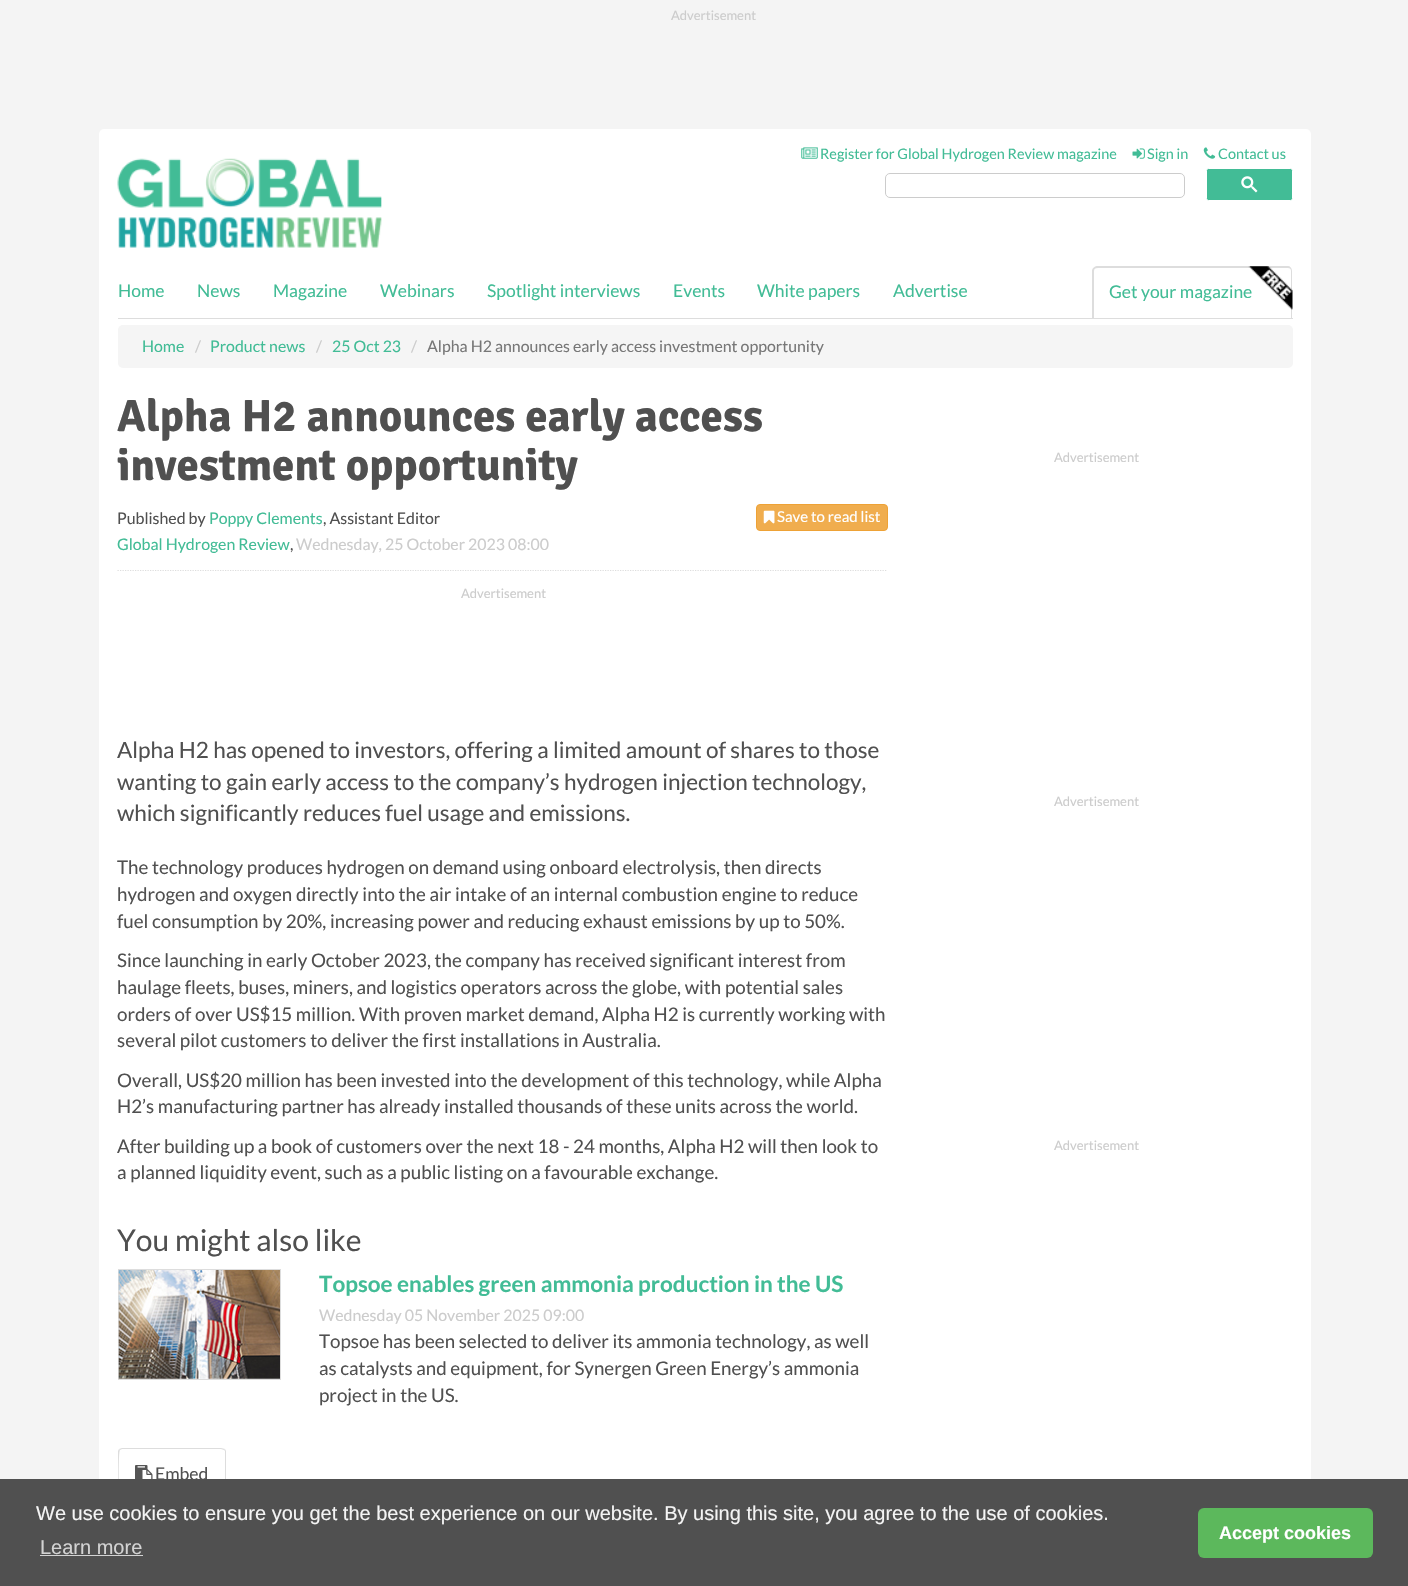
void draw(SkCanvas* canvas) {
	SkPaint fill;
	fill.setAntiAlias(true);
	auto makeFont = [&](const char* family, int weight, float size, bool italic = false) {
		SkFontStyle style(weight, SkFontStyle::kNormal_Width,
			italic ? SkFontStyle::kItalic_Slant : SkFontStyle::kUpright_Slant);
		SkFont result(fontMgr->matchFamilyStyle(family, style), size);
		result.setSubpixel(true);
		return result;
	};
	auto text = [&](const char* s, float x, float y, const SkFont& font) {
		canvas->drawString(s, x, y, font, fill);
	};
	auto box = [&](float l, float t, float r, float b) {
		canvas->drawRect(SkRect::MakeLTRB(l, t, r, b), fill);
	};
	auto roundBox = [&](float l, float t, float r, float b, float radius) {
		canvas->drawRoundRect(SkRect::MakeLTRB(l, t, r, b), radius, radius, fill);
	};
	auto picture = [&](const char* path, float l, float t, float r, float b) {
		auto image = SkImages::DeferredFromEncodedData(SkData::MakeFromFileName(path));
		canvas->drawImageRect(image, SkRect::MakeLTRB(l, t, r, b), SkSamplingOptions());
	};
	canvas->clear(0xFFF4F4F4);
	fill.setColor(0xFFFFFFFF);
	roundBox(99, 129, 1311, 178, 5);
	picture("image0.png", 801, 147, 818, 159);
	picture("image1.png", 1132, 148, 1145, 159);
	picture("image2.png", 1203, 147, 1216, 159);
	box(99, 174, 1311, 266);
	picture("image3.png", 117, 158, 382, 248);
	fill.setStyle(SkPaint::kStroke_Style);
	fill.setStrokeWidth(1);
	fill.setColor(0xFFCCCCCC);
	canvas->drawRoundRect(SkRect::MakeLTRB(885.5f, 173.5f, 1184.5f, 197.5f), 4.5f, 4.5f, fill);
	fill.setStyle(SkPaint::kFill_Style);
	fill.setColor(0xFF42BC96);
	canvas->drawRoundRect(SkRect::MakeLTRB(1206.5f, 168.5f, 1292.5f, 200.5f), 2, 2, fill);
	fill.setStyle(SkPaint::kStroke_Style);
	fill.setColor(0xFFFFFFFF);
	canvas->drawRoundRect(SkRect::MakeLTRB(1206.5f, 168.5f, 1292.5f, 200.5f), 2, 2, fill);
	picture("image4.png", 1241, 176, 1258, 193);
	fill.setStyle(SkPaint::kFill_Style);
	box(99, 266, 1311, 393);
	fill.setColor(0xFFDDDDDD);
	box(118, 318, 1293, 319);
	canvas->drawPath(SkPathBuilder(SkPathFillType::kEvenOdd).moveTo(1098, 266).lineTo(1288, 266).cubicTo(1290, 266, 1292, 268, 1292, 271).lineTo(1292, 318).lineTo(1092, 318).lineTo(1092, 271).cubicTo(1092, 268, 1095, 266, 1098, 266).close().moveTo(1098, 268).lineTo(1288, 268).cubicTo(1290, 268, 1291, 269, 1291, 271).lineTo(1291, 318).lineTo(1094, 318).lineTo(1094, 271).cubicTo(1094, 269, 1095, 268, 1098, 268).close().detach(), fill);
	fill.setColor(0xFFF5F5F5);
	roundBox(118, 325, 1293, 368, 5);
	fill.setColor(0xFFFFFFFF);
	roundBox(99, 388, 1311, 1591, 5);
	fill.setColor(0xFFF0AD4E);
	canvas->drawRoundRect(SkRect::MakeLTRB(756.5f, 504.5f, 887.5f, 530.5f), 3.5f, 3.5f, fill);
	fill.setStyle(SkPaint::kStroke_Style);
	fill.setColor(0xFFEEA236);
	canvas->drawRoundRect(SkRect::MakeLTRB(756.5f, 504.5f, 887.5f, 530.5f), 3.5f, 3.5f, fill);
	picture("image6.png", 763, 510, 775, 524);
	fill.setStrokeWidth(1.2f);
	fill.setColor(0xFFDDDDDD);
	fill.setPathEffect(SkDashPathEffect::Make({{1.25f, 1.25f}}, 0));
	canvas->drawPath(SkPathBuilder().moveTo(117.5f, 570.5f).lineTo(887.5f, 570.5f).detach(), fill);
	fill.setPathEffect(nullptr);
	fill.setStrokeWidth(1);
	canvas->drawRect(SkRect::MakeLTRB(118.5f, 1269.5f, 280.5f, 1379.5f), fill);
	picture("image7.png", 118, 1270, 280, 1379);
	fill.setStyle(SkPaint::kFill_Style);
	canvas->drawPath(SkPathBuilder().moveTo(122, 1448).lineTo(119, 1449).lineTo(120, 1450).lineTo(122, 1449).lineTo(221, 1449).lineTo(224, 1450).lineTo(225, 1449).lineTo(221, 1448).close().detach(), fill);
	canvas->drawPath(SkPathBuilder().moveTo(226, 1500).lineTo(226, 1451).lineTo(225, 1449).lineTo(224, 1450).lineTo(225, 1451).lineTo(225, 1499).close().detach(), fill);
	canvas->drawPath(SkPathBuilder().moveTo(119, 1449).lineTo(118, 1451).lineTo(118, 1500).lineTo(119, 1498).cubicTo(119, 1493, 118, 1452, 120, 1450).close().detach(), fill);
	picture("image8.png", 135, 1465, 153, 1479);
	fill.setColor(0xFF505050);
	box(0, 1479, 1408, 1586);
	fill.setColor(0xFFD3D3D3);
	box(40, 1555, 143, 1556);
	fill.setColor(0xFF5CB85C);
	roundBox(1198, 1508, 1373, 1558, 6);
	auto font1 = makeFont("Lato", 400, 13);
	fill.setColor(0xFFCCCCCC);
	text("Advertisement", 671, 20, font1);
	auto font2 = makeFont("Lato", 400, 14.45f);
	fill.setColor(0xFF42BC96);
	text("Register for Global Hydrogen Review magazine", 820, 159, font2);
	text("Sign in", 1147, 159, font2);
	text("Contact us", 1218, 159, font2);
	auto font3 = makeFont("Lato", 400, 17.5f);
	text("Home", 118, 297, font3);
	text("News", 197, 297, font3);
	text("Magazine", 273, 297, font3);
	text("Webinars", 380, 297, font3);
	text("Spotlight interviews", 487, 297, font3);
	text("Events", 673, 297, font3);
	text("White papers", 757, 297, font3);
	text("Advertise", 893, 297, font3);
	text("Get your magazine", 1109, 298, font3);
	picture("image5.png", 1248, 266, 1293, 310);
	auto font4 = makeFont("Lato", 400, 15.9f);
	text("Home", 142, 352, font4);
	fill.setColor(0xFFCCCCCC);
	text("/", 195, 352, font4);
	fill.setColor(0xFF42BC96);
	text("Product news", 210, 352, font4);
	fill.setColor(0xFFCCCCCC);
	text("/", 316, 352, font4);
	fill.setColor(0xFF42BC96);
	text("25 Oct 23", 332, 352, font4);
	fill.setColor(0xFFCCCCCC);
	text("/", 411, 352, font4);
	fill.setColor(0xFF777777);
	text("Alpha H2 announces early access investment opportunity", 427, 352, font4);
	auto font5 = makeFont("Signika", 700, 45);
	fill.setColor(0xFF505050);
	text("Alpha H2 announces early access", 117, 431, font5);
	text("investment opportunity", 117, 480, font5);
	text("Published by", 117, 524, font4);
	fill.setColor(0xFF42BC96);
	text("Poppy Clements", 209, 524, font4);
	fill.setColor(0xFF505050);
	text(", Assistant Editor", 323, 524, font4);
	auto font6 = makeFont("Lato", 400, 15);
	fill.setColor(0xFFFFFFFF);
	text("Save to read list", 777, 522, font6);
	fill.setColor(0xFF42BC96);
	text("Global Hydrogen Review", 117, 550, font4);
	fill.setColor(0xFF505050);
	text(",", 290, 550, font4);
	fill.setColor(0xFFCCCCCC);
	text("Wednesday, 25 October 2023 08:00", 296, 550, font4);
	text("Advertisement", 461, 598, font1);
	auto font7 = makeFont("Lato", 400, 22.5f);
	fill.setColor(0xFF505050);
	text("Alpha H2 has opened to investors, offering a limited amount of shares to those", 117, 758, font7);
	text("wanting to gain early access to the company’s hydrogen injection technology,", 117, 790, font7);
	text("which significantly reduces fuel usage and emissions.", 117, 821, font7);
	auto font8 = makeFont("Lato", 400, 18.75f);
	text("The technology produces hydrogen on demand using onboard electrolysis, then directs", 117, 874, font8);
	text("hydrogen and oxygen directly into the air intake of an internal combustion engine to reduce", 117, 901, font8);
	text("fuel consumption by 20%, increasing power and reducing exhaust emissions by up to 50%.", 117, 928, font8);
	text("Since launching in early October 2023, the company has received significant interest from", 117, 967, font8);
	text("haulage fleets, buses, miners, and logistics operators across the globe, with potential sales", 117, 994, font8);
	text("orders of over US$15 million. With proven market demand, Alpha H2 is currently working with", 117, 1021, font8);
	text("several pilot customers to deliver the first installations in Australia.", 117, 1047, font8);
	text("Overall, US$20 million has been invested into the development of this technology, while Alpha", 117, 1087, font8);
	text("H2’s manufacturing partner has already installed thousands of these units across the world.", 117, 1113, font8);
	text("After building up a book of customers over the next 18 - 24 months, Alpha H2 will then look to", 117, 1153, font8);
	text("a planned liquidity event, such as a public listing on a favourable exchange.", 117, 1179, font8);
	auto font9 = makeFont("Lato", 400, 30);
	text("You might also like", 117, 1251, font9);
	auto font10 = makeFont("Lato", 700, 22.5f);
	fill.setColor(0xFF42BC96);
	text("Topsoe enables green ammonia production in the US", 319, 1292, font10);
	fill.setColor(0xFFCCCCCC);
	text("Wednesday 05 November 2025 09:00", 319, 1321, font4);
	fill.setColor(0xFF505050);
	text("Topsoe has been selected to deliver its ammonia technology, as well", 319, 1348, font8);
	text("as catalysts and equipment, for Synergen Green Energy’s ammonia", 319, 1375, font8);
	text("project in the US.", 319, 1402, font8);
	text("Embed", 155, 1480, font3);
	fill.setColor(0xFFCCCCCC);
	text("Advertisement", 1054, 462, font1);
	text("Advertisement", 1054, 806, font1);
	text("Advertisement", 1054, 1150, font1);
	auto font11 = makeFont("Liberation Sans", 400, 20);
	fill.setColor(0xFFF4F4F4);
	text("We use cookies to ensure you get the best experience on our website. By using this site, you agree to the use of cookies.", 36, 1520, font11);
	fill.setColor(0xFFD3D3D3);
	text("Learn more", 40, 1554, font11);
	auto font12 = makeFont("Liberation Sans", 700, 18);
	fill.setColor(0xFFFFFFFF);
	text("Accept cookies", 1219, 1539, font12);
}
